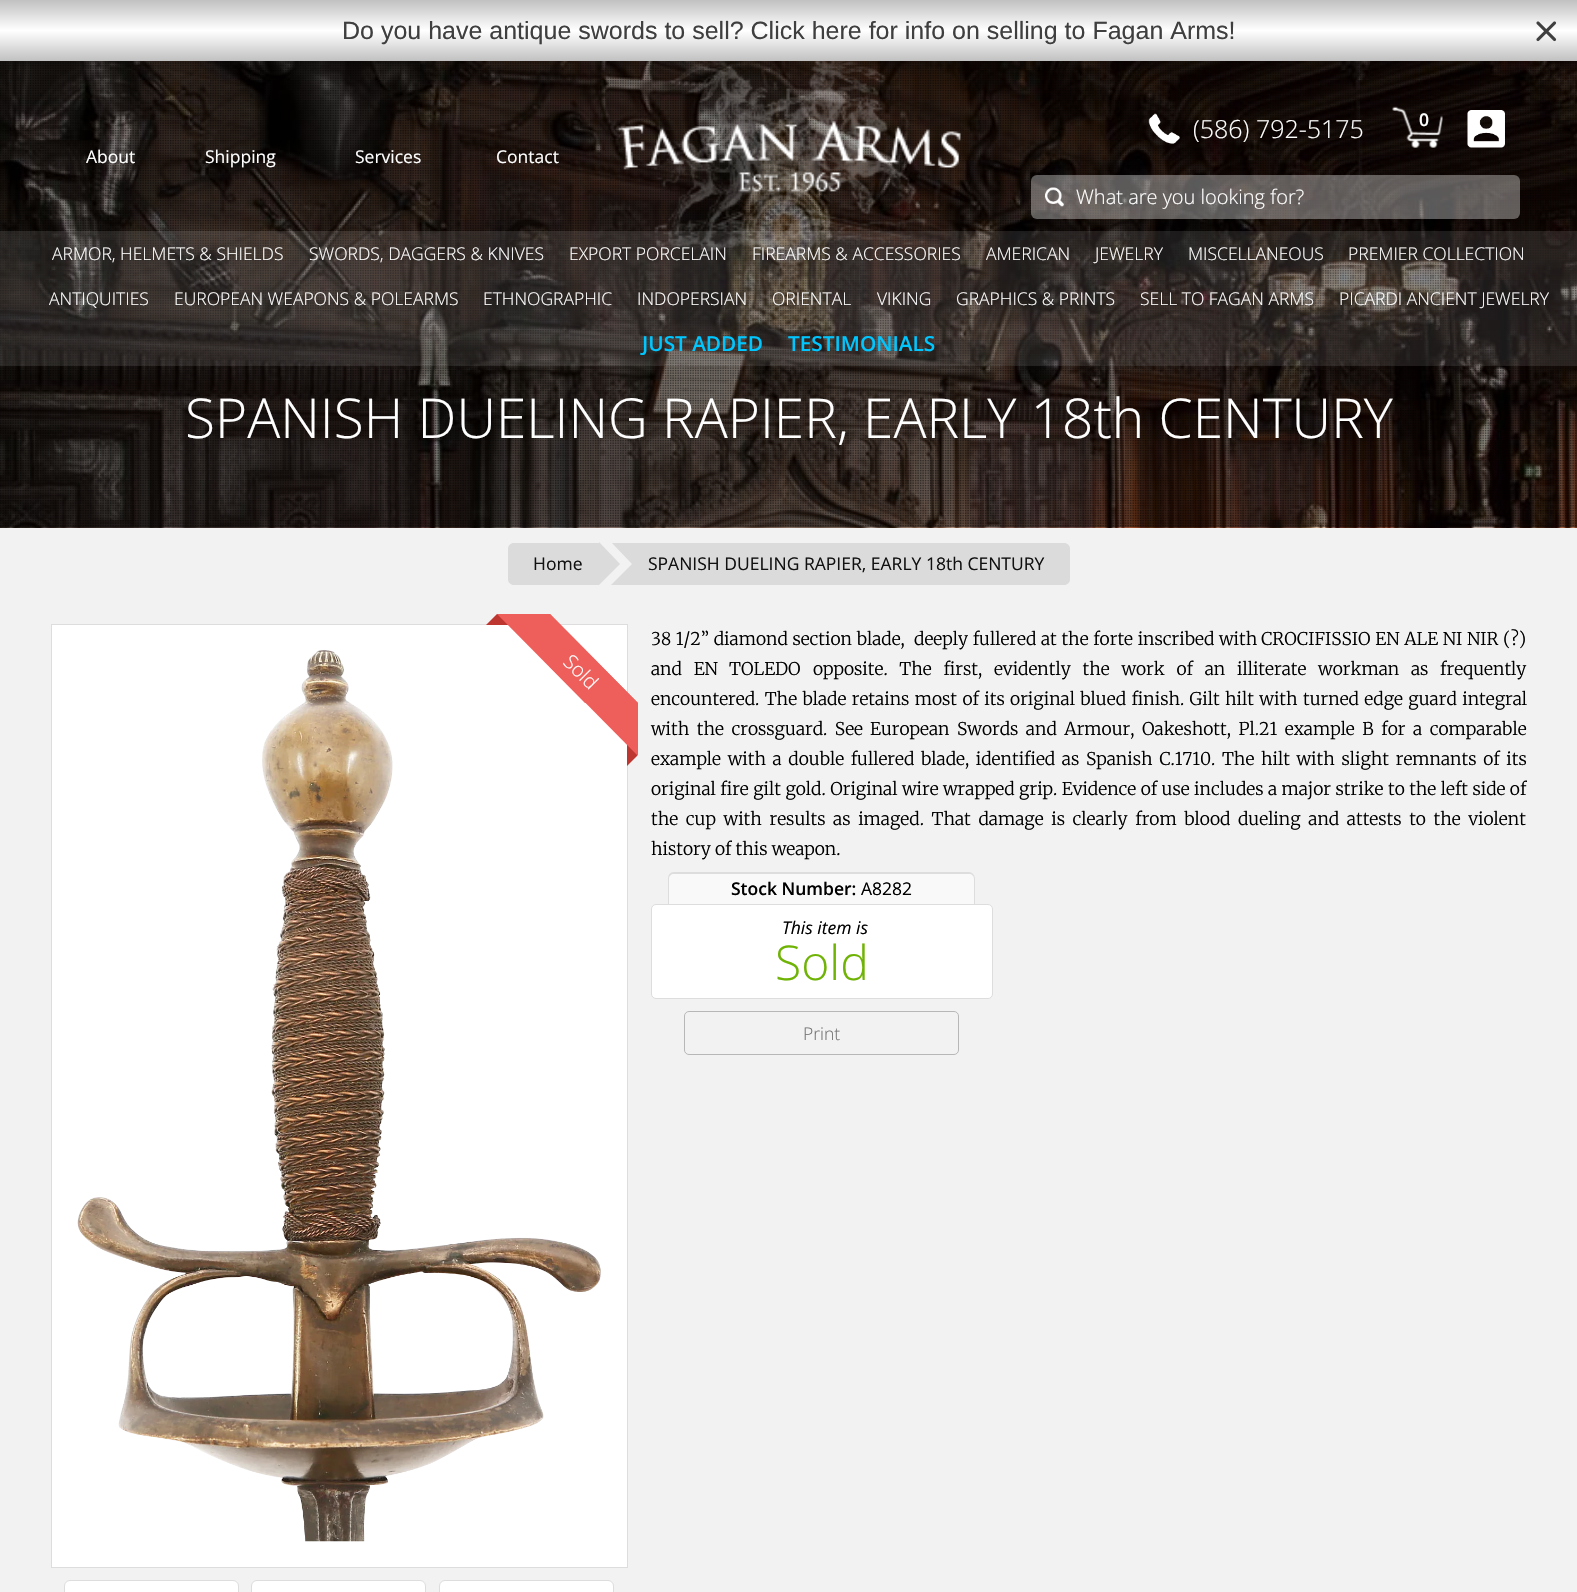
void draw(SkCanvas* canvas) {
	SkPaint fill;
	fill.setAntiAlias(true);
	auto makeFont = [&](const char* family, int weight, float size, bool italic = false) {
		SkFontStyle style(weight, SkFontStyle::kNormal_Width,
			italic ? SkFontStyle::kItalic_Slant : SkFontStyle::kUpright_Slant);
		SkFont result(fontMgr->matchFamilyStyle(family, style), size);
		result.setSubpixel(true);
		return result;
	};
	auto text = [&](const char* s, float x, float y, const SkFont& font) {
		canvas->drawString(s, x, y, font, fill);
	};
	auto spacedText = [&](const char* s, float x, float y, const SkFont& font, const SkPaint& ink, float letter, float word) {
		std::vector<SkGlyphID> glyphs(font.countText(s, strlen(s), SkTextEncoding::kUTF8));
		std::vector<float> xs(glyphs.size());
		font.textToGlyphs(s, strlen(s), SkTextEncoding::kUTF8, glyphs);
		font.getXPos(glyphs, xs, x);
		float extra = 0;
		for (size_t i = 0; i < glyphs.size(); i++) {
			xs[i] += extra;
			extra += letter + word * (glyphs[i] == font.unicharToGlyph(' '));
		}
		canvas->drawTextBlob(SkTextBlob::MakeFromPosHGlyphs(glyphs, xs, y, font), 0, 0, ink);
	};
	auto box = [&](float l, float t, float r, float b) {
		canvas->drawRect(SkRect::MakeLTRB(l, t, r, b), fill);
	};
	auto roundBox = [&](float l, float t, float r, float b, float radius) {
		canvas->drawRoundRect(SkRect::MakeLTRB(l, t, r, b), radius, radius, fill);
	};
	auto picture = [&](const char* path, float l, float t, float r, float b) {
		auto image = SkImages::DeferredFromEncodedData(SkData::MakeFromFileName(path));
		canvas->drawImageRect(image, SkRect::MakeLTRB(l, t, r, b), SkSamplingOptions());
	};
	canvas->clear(0xFFF2F2F2);
	{
		const SkColor colors[] = {0xFFC1C1C1, 0xFFFFFFFF, 0xFFC1C1C1};
		const float stops[] = {0, 0.5f, 1};
		const SkPoint ends[] = {{789, 0}, {789, 61}};
		fill.setShader(SkGradientShader::MakeLinear(ends, colors, stops, 3, SkTileMode::kClamp));
		fill.setAlpha(255);
	}
	box(0, 0, 1577, 61);
	picture("image0.png", 1536, 21, 1557, 42);
	picture("image6.png", 0, 61, 1577, 528);
	picture("image7.png", 0, 61, 1577, 528);
	picture("image2.png", 1148, 113, 1180, 144);
	picture("image3.png", 1392, 106, 1443, 148);
	picture("image4.png", 1467, 110, 1505, 148);
	fill.setShader(nullptr);
	fill.setColor(0x59FFFFFF);
	roundBox(1031, 175, 1520, 219, 6);
	picture("image5.png", 1045, 187, 1064, 207);
	fill.setColor(0x1AFFFFFF);
	box(0, 231, 1577, 276);
	box(0, 276, 1577, 321);
	box(0, 321, 1577, 366);
	fill.setColor(0xFFDBDBDB);
	canvas->drawPath(SkPathBuilder().moveTo(514, 543).lineTo(599, 543).lineTo(599, 585).lineTo(514, 585).cubicTo(510.5f, 585, 508, 582.5f, 508, 579).lineTo(508, 549).cubicTo(508, 545.5f, 510.5f, 543, 514, 543).close().detach(), fill);
	canvas->drawPath(SkPathBuilder().moveTo(611, 543).lineTo(1064, 543).cubicTo(1067.5f, 543, 1070, 545.5f, 1070, 549).lineTo(1070, 579).cubicTo(1070, 582.5f, 1067.5f, 585, 1064, 585).lineTo(611, 585).close().detach(), fill);
	fill.setColor(0xFFF2F2F2);
	canvas->drawPath(SkPathBuilder().moveTo(611, 585).lineTo(611, 542).lineTo(632, 564).close().detach(), fill);
	fill.setColor(0xFFDBDBDB);
	canvas->drawPath(SkPathBuilder().moveTo(599, 585).lineTo(599, 542).lineTo(620, 564).close().detach(), fill);
	fill.setColor(0xFFFFFFFF);
	canvas->drawRect(SkRect::MakeLTRB(51.5f, 624.5f, 627.5f, 1567.5f), fill);
	fill.setStyle(SkPaint::kStroke_Style);
	fill.setStrokeWidth(1);
	fill.setColor(0xFFDDDDDD);
	canvas->drawRect(SkRect::MakeLTRB(51.5f, 624.5f, 627.5f, 1567.5f), fill);
	picture("image8.png", 77, 650, 601, 1542);
	fill.setStyle(SkPaint::kFill_Style);
	fill.setColor(0xFFBD362F);
	canvas->drawPath(SkPathBuilder().moveTo(497, 614).lineTo(550, 614).lineTo(539, 625).lineTo(486, 625).close().detach(), fill);
	fill.setColor(0xFFEE5F5B);
	canvas->drawPath(SkPathBuilder().moveTo(550, 614).lineTo(638, 703).lineTo(585, 703).lineTo(497, 614).close().detach(), fill);
	fill.setColor(0xFFBD362F);
	canvas->drawPath(SkPathBuilder().moveTo(637, 703).lineTo(637, 756).lineTo(627, 766).lineTo(627, 713).close().detach(), fill);
	fill.setColor(0xFFEE5F5B);
	canvas->drawPath(SkPathBuilder().moveTo(550, 614).lineTo(638, 703).lineTo(638, 756).lineTo(550, 667).close().detach(), fill);
	fill.setColor(0xFFFFFFFF);
	canvas->drawRoundRect(SkRect::MakeLTRB(64.5f, 1580.5f, 238.5f, 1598.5f), 5.5f, 5.5f, fill);
	fill.setStyle(SkPaint::kStroke_Style);
	fill.setColor(0xFFDDDDDD);
	canvas->drawRoundRect(SkRect::MakeLTRB(64.5f, 1580.5f, 238.5f, 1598.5f), 5.5f, 5.5f, fill);
	fill.setStyle(SkPaint::kFill_Style);
	fill.setColor(0xFFFFFFFF);
	canvas->drawRoundRect(SkRect::MakeLTRB(251.5f, 1580.5f, 425.5f, 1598.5f), 5.5f, 5.5f, fill);
	fill.setStyle(SkPaint::kStroke_Style);
	fill.setColor(0xFFDDDDDD);
	canvas->drawRoundRect(SkRect::MakeLTRB(251.5f, 1580.5f, 425.5f, 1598.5f), 5.5f, 5.5f, fill);
	fill.setStyle(SkPaint::kFill_Style);
	fill.setColor(0xFFFFFFFF);
	canvas->drawRoundRect(SkRect::MakeLTRB(439.5f, 1580.5f, 613.5f, 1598.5f), 5.5f, 5.5f, fill);
	fill.setStyle(SkPaint::kStroke_Style);
	fill.setColor(0xFFDDDDDD);
	canvas->drawRoundRect(SkRect::MakeLTRB(439.5f, 1580.5f, 613.5f, 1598.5f), 5.5f, 5.5f, fill);
	fill.setStyle(SkPaint::kFill_Style);
	fill.setColor(0xFFF9F9F9);
	canvas->drawPath(SkPathBuilder().moveTo(674, 873).lineTo(969, 873).cubicTo(972.5f, 873, 975, 875.5f, 975, 879).lineTo(975, 904).lineTo(668, 904).lineTo(668, 879).cubicTo(668, 875.5f, 670.5f, 873, 674, 873).close().detach(), fill);
	fill.setColor(0xFFDDDDDD);
	canvas->drawPath(SkPathBuilder(SkPathFillType::kEvenOdd).moveTo(674, 872).lineTo(969, 872).cubicTo(972, 872, 975, 875, 975, 879).lineTo(975, 904).lineTo(668, 904).lineTo(668, 879).cubicTo(668, 875, 670, 872, 674, 872).close().moveTo(674, 874).lineTo(969, 874).cubicTo(972, 874, 974, 876, 974, 879).lineTo(974, 904).lineTo(669, 904).lineTo(669, 879).cubicTo(669, 876, 671, 874, 674, 874).close().detach(), fill);
	fill.setColor(0xFFFFFFFF);
	canvas->drawRoundRect(SkRect::MakeLTRB(651.5f, 904.5f, 992.5f, 998.5f), 4.5f, 4.5f, fill);
	fill.setStyle(SkPaint::kStroke_Style);
	fill.setColor(0xFFDDDDDD);
	canvas->drawRoundRect(SkRect::MakeLTRB(651.5f, 904.5f, 992.5f, 998.5f), 4.5f, 4.5f, fill);
	fill.setColor(0xFFB7B7B7);
	canvas->drawRoundRect(SkRect::MakeLTRB(684.5f, 1011.5f, 958.5f, 1054.5f), 4.5f, 4.5f, fill);
	auto font1 = makeFont("Liberation Sans", 400, 25);
	fill.setStyle(SkPaint::kFill_Style);
	fill.setColor(0xFF3F3F3F);
	text("Do you have antique swords to sell? Click here for info on selling to Fagan Arms!", 342, 39, font1);
	auto font2 = makeFont("Open Sans", 400, 17.5f);
	fill.setColor(0xFFFFFFFF);
	text("About", 86, 163, font2);
	text("Shipping", 205, 163, font2);
	text("Services", 355, 163, font2);
	text("Contact", 496, 163, font2);
	auto font3 = makeFont("Open Sans", 300, 25);
	text("(586) 792-5175", 1193, 138, font3);
	auto font4 = makeFont("Open Sans", 600, 17.5f);
	text("0", 1419, 126, font4);
	auto font5 = makeFont("Open Sans", 300, 20);
	text("What are you looking for?", 1076, 204, font5);
	auto font6 = makeFont("Open Sans", 300, 17.5f);
	text("ARMOR, HELMETS & SHIELDS", 52, 260, font6);
	text("SWORDS, DAGGERS & KNIVES", 309, 260, font6);
	text("EXPORT PORCELAIN", 569, 260, font6);
	text("FIREARMS & ACCESSORIES", 752, 260, font6);
	picture("image1.png", 618, 61, 961, 252);
	text("AMERICAN", 986, 260, font6);
	text("JEWELRY", 1095, 260, font6);
	text("MISCELLANEOUS", 1188, 260, font6);
	text("PREMIER COLLECTION", 1348, 260, font6);
	text("ANTIQUITIES", 49, 305, font6);
	text("EUROPEAN WEAPONS & POLEARMS", 174, 305, font6);
	text("ETHNOGRAPHIC", 483, 305, font6);
	text("INDOPERSIAN", 637, 305, font6);
	text("ORIENTAL", 772, 305, font6);
	text("VIKING", 877, 305, font6);
	text("GRAPHICS & PRINTS", 956, 305, font6);
	text("SELL TO FAGAN ARMS", 1140, 305, font6);
	text("PICARDI ANCIENT JEWELRY", 1339, 305, font6);
	auto font7 = makeFont("Open Sans", 600, 20.75f);
	fill.setColor(0xFF00C6FF);
	text("JUST ADDED", 642, 351, font7);
	text("TESTIMONIALS", 788, 351, font7);
	auto font8 = makeFont("Open Sans", 300, 55);
	fill.setColor(0xFFFFFFFF);
	text("SPANISH DUELING RAPIER, EARLY 18th CENTURY", 185, 438, font8);
	fill.setColor(0xFF111111);
	text("Home", 533, 570, font2);
	text("SPANISH DUELING RAPIER, EARLY 18th CENTURY", 648, 570, font2);
	fill.setColor(0xFFFFFFFF);
	canvas->save();
	canvas->rotate(45, 562, 663);
	text("Sold", 562, 663, font5);
	canvas->restore();
	auto font9 = makeFont("Merriweather", 300, 17.5f);
	fill.setColor(0xFF000000);
	spacedText("38 1/2” diamond section blade,  deeply fullered at the forte inscribed with", 651, 645, font9, fill, 0, 0.5f);
	spacedText("CROCIFISSIO EN ALE NI NIR", 1261, 645, font9, fill, 0, 0.5f);
	text("(?)", 1503, 645, font9);
	spacedText("and EN", 651, 675, font9, fill, 0, 7.6f);
	text("TOLEDO", 729, 675, font9);
	spacedText("opposite. The first, evidently the work of an illiterate workman as frequently", 813, 675, font9, fill, 0, 7.6f);
	spacedText("encountered. The blade retains most of its original blued finish. Gilt hilt with turned edge guard integral", 651, 705, font9, fill, 0, 1.25f);
	spacedText("with the crossguard. See", 651, 735, font9, fill, 0, 3.4f);
	spacedText("European Swords and Armour, Oakeshott, Pl.21 example B for a comparable", 870, 735, font9, fill, 0, 3.4f);
	spacedText("example with a double fullered blade, identified as Spanish C.1710. The hilt with slight remnants of its", 651, 765, font9, fill, 0, 2.5f);
	spacedText("original fire gilt gold. Original wire wrapped grip. Evidence of use includes a major strike to the left side of", 651, 795, font9, fill, 0, 0.3f);
	spacedText("the cup with results as imaged. That damage is clearly from blood dueling and attests to the violent", 651, 825, font9, fill, 0, 3.5f);
	text("history of this weapon.", 651, 855, font9);
	text("Stock Number:", 731, 895, font4);
	text("A8282", 861, 895, font2);
	auto font10 = makeFont("Open Sans", 400, 17.5f, true);
	text("This item is", 782, 934, font10);
	auto font11 = makeFont("Open Sans", 300, 48);
	fill.setColor(0xFF6FB305);
	text("Sold", 775, 980, font11);
	fill.setColor(0xFF737373);
	text("Print", 803, 1040, font6);
}
